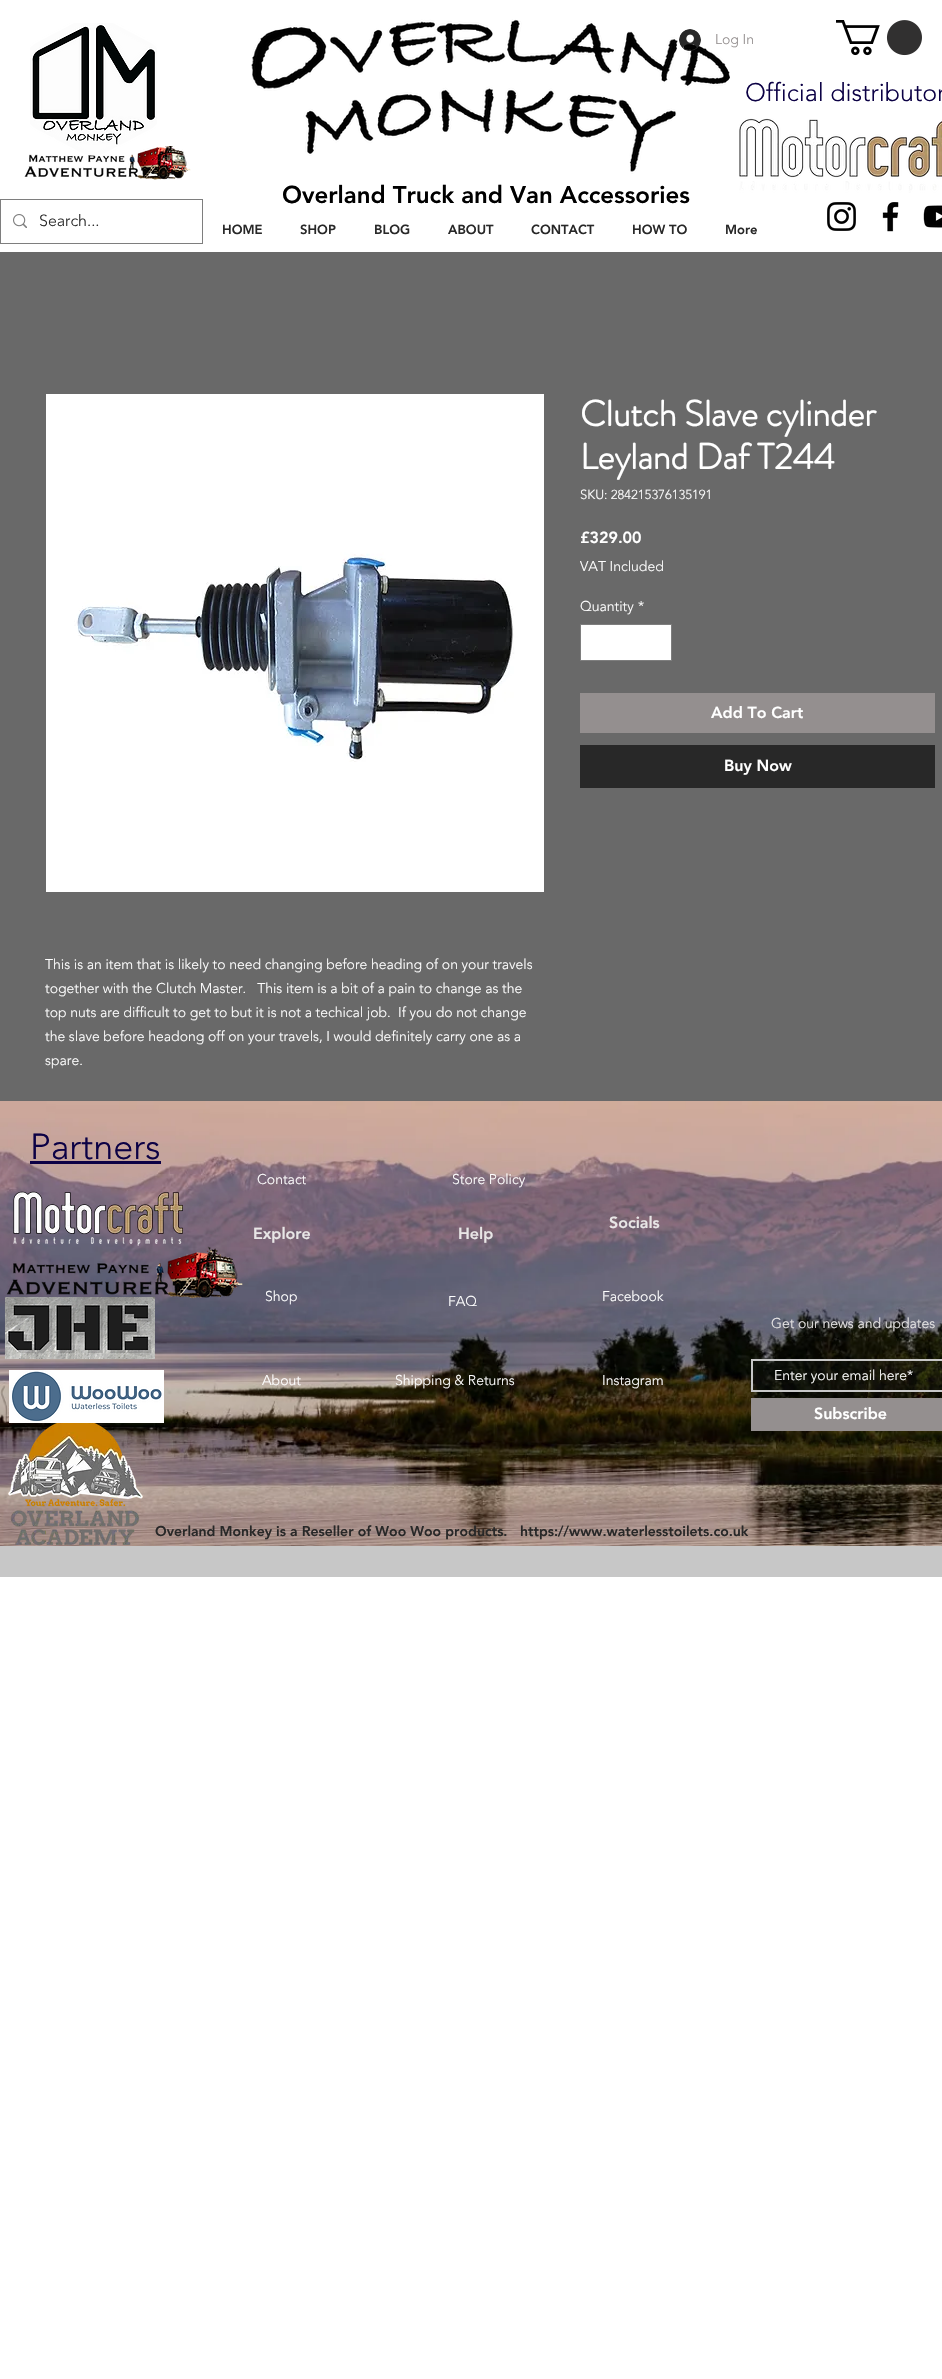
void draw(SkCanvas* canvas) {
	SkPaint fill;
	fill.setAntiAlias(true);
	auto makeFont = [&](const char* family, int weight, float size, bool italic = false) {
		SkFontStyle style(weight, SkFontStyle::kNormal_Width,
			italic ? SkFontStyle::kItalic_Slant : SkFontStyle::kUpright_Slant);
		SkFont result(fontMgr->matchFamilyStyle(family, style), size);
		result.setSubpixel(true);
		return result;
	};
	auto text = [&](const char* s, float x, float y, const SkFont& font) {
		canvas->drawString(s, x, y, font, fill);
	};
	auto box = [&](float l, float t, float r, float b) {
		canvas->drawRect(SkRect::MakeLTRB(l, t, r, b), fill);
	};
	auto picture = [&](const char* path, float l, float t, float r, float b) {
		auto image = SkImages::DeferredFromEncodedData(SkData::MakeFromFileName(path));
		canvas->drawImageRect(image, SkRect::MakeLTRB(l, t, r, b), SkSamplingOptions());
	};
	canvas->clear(0xFFFFFFFF);
	picture("image3.png", 251, 19, 730, 174);
	picture("image0.png", 679, 29, 701, 51);
	picture("image1.png", 836, 20, 922, 56);
	picture("image4.png", 24, 146, 191, 180);
	picture("image2.png", 30, 23, 157, 156);
	picture("image5.png", 739, 118, 942, 193);
	fill.setStyle(SkPaint::kStroke_Style);
	fill.setStrokeWidth(1);
	fill.setColor(0xFF7E7E7E);
	canvas->drawRect(SkRect::MakeLTRB(0.5f, 199.5f, 202.5f, 243.5f), fill);
	picture("image6.png", 13, 214, 27, 228);
	picture("image7.png", 827, 202, 856, 231);
	picture("image8.png", 882, 202, 899, 232);
	picture("image9.png", 923, 205, 942, 228);
	fill.setStyle(SkPaint::kFill_Style);
	fill.setColor(0xFF696969);
	box(0, 252, 942, 1101);
	fill.setColor(0xFFFFFFFF);
	canvas->drawRect(SkRect::MakeLTRB(580.5f, 624.5f, 671.5f, 660.5f), fill);
	fill.setStyle(SkPaint::kStroke_Style);
	fill.setColor(0xFF7E7E7E);
	canvas->drawRect(SkRect::MakeLTRB(580.5f, 624.5f, 671.5f, 660.5f), fill);
	fill.setStyle(SkPaint::kFill_Style);
	fill.setColor(0xFF948F8F);
	box(580, 693, 935, 733);
	fill.setColor(0xFF282828);
	box(580, 745, 935, 788);
	picture("image10.png", 46, 394, 544, 892);
	picture("image11.png", 0, 1101, 942, 1546);
	fill.setColor(0xFF0C0145);
	box(30, 1161, 161, 1164);
	picture("image12.png", 13, 1191, 183, 1246);
	picture("image14.png", 5, 1297, 155, 1359);
	picture("image13.png", 6, 1246, 243, 1299);
	fill.setColor(0x21282828);
	canvas->drawRect(SkRect::MakeLTRB(752, 1360, 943, 1391), fill);
	fill.setStyle(SkPaint::kStroke_Style);
	fill.setStrokeWidth(2);
	fill.setColor(0xFFC7C7C7);
	canvas->drawRect(SkRect::MakeLTRB(752, 1360, 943, 1391), fill);
	fill.setStyle(SkPaint::kFill_Style);
	fill.setColor(0xFF948F8F);
	box(751, 1398, 942, 1431);
	picture("image15.png", 9, 1370, 164, 1423);
	picture("image16.png", 8, 1423, 143, 1546);
	fill.setColor(0xFFC7C7C7);
	box(0, 1546, 942, 1577);
	auto font1 = makeFont("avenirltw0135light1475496", 300, 14);
	fill.setColor(0xFF948F8F);
	text("Log In", 715, 44, font1);
	auto font2 = makeFont("avenirltw0135light1475496", 300, 25);
	fill.setColor(0xFF0C0145);
	text("Official distributor", 745, 101, font2);
	auto font3 = makeFont("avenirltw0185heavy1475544", 900, 24);
	fill.setColor(0xFF000000);
	text("Overland Truck and Van Accessories", 282, 203, font3);
	auto font4 = makeFont("avenirltw0135light1475496", 300, 16);
	fill.setColor(0xFF282828);
	text("Search...", 39, 226, font4);
	auto font5 = makeFont("avenirltw0185heavy1475544", 900, 13);
	text("HOME", 222, 234, font5);
	text("SHOP", 300, 234, font5);
	text("BLOG", 374, 234, font5);
	text("ABOUT", 448, 234, font5);
	text("CONTACT", 531, 234, font5);
	text("HOW TO", 632, 234, font5);
	text("More", 725, 234, font5);
	auto font6 = makeFont("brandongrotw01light", 700, 36);
	fill.setColor(0xFFFFFFFF);
	text("Clutch Slave cylinder", 580, 426, font6);
	text("Leyland Daf T244", 580, 469, font6);
	auto font7 = makeFont("avenirltw0135light1475496", 300, 13);
	text("SKU: 284215376135191", 580, 499, font7);
	auto font8 = makeFont("avenirltw0185heavy1475544", 900, 16);
	text("£329.00", 580, 543, font8);
	text("VAT Included", 580, 571, font1);
	text("Quantity", 580, 611, font1);
	text("*", 638, 611, font1);
	text("Add To Cart", 711, 718, font8);
	text("Buy Now", 724, 771, font8);
	text("This is an item that is likely to need changing before heading of on your travels", 45, 969, font1);
	text("together with the Clutch Master.   This item is a bit of a pain to change as the", 45, 993, font1);
	text("top nuts are difficult to get to but it is not a techical job.  If you do not change", 45, 1017, font1);
	text("the slave before headong off on your travels, I would definitely carry one as a", 45, 1041, font1);
	text("spare.", 45, 1065, font1);
	auto font9 = makeFont("avenirltw0135light1475496", 300, 36);
	fill.setColor(0xFF0C0145);
	text("Partners", 30, 1159, font9);
	fill.setColor(0xFFFFFFFF);
	text("Contact", 257, 1184, font1);
	text("Store Policy", 452, 1184, font1);
	fill.setColor(0xFFE8E6E6);
	text("Socials", 609, 1228, font8);
	text("Explore", 253, 1239, font8);
	text("Help", 458, 1239, font8);
	fill.setColor(0xFFFFFFFF);
	text("Shop", 265, 1301, font1);
	text("FAQ", 448, 1306, font1);
	text("Facebook", 602, 1301, font1);
	fill.setColor(0xFFE8E6E6);
	text("Get our news and updates", 771, 1328, font1);
	fill.setColor(0xFFFFFFFF);
	text("Enter your email here*", 774, 1380, font1);
	text("Subscribe", 814, 1419, font8);
	text("About", 262, 1385, font1);
	text("Shipping & Returns", 395, 1385, font1);
	text("Instagram", 602, 1385, font1);
	auto font10 = makeFont("avenirltw0185heavy1475544", 900, 14);
	fill.setColor(0xFF282828);
	text("Overland Monkey is a Reseller of Woo Woo products.", 155, 1536, font10);
	text("https://www.waterlesstoilets.co.uk", 520, 1536, font10);
}
